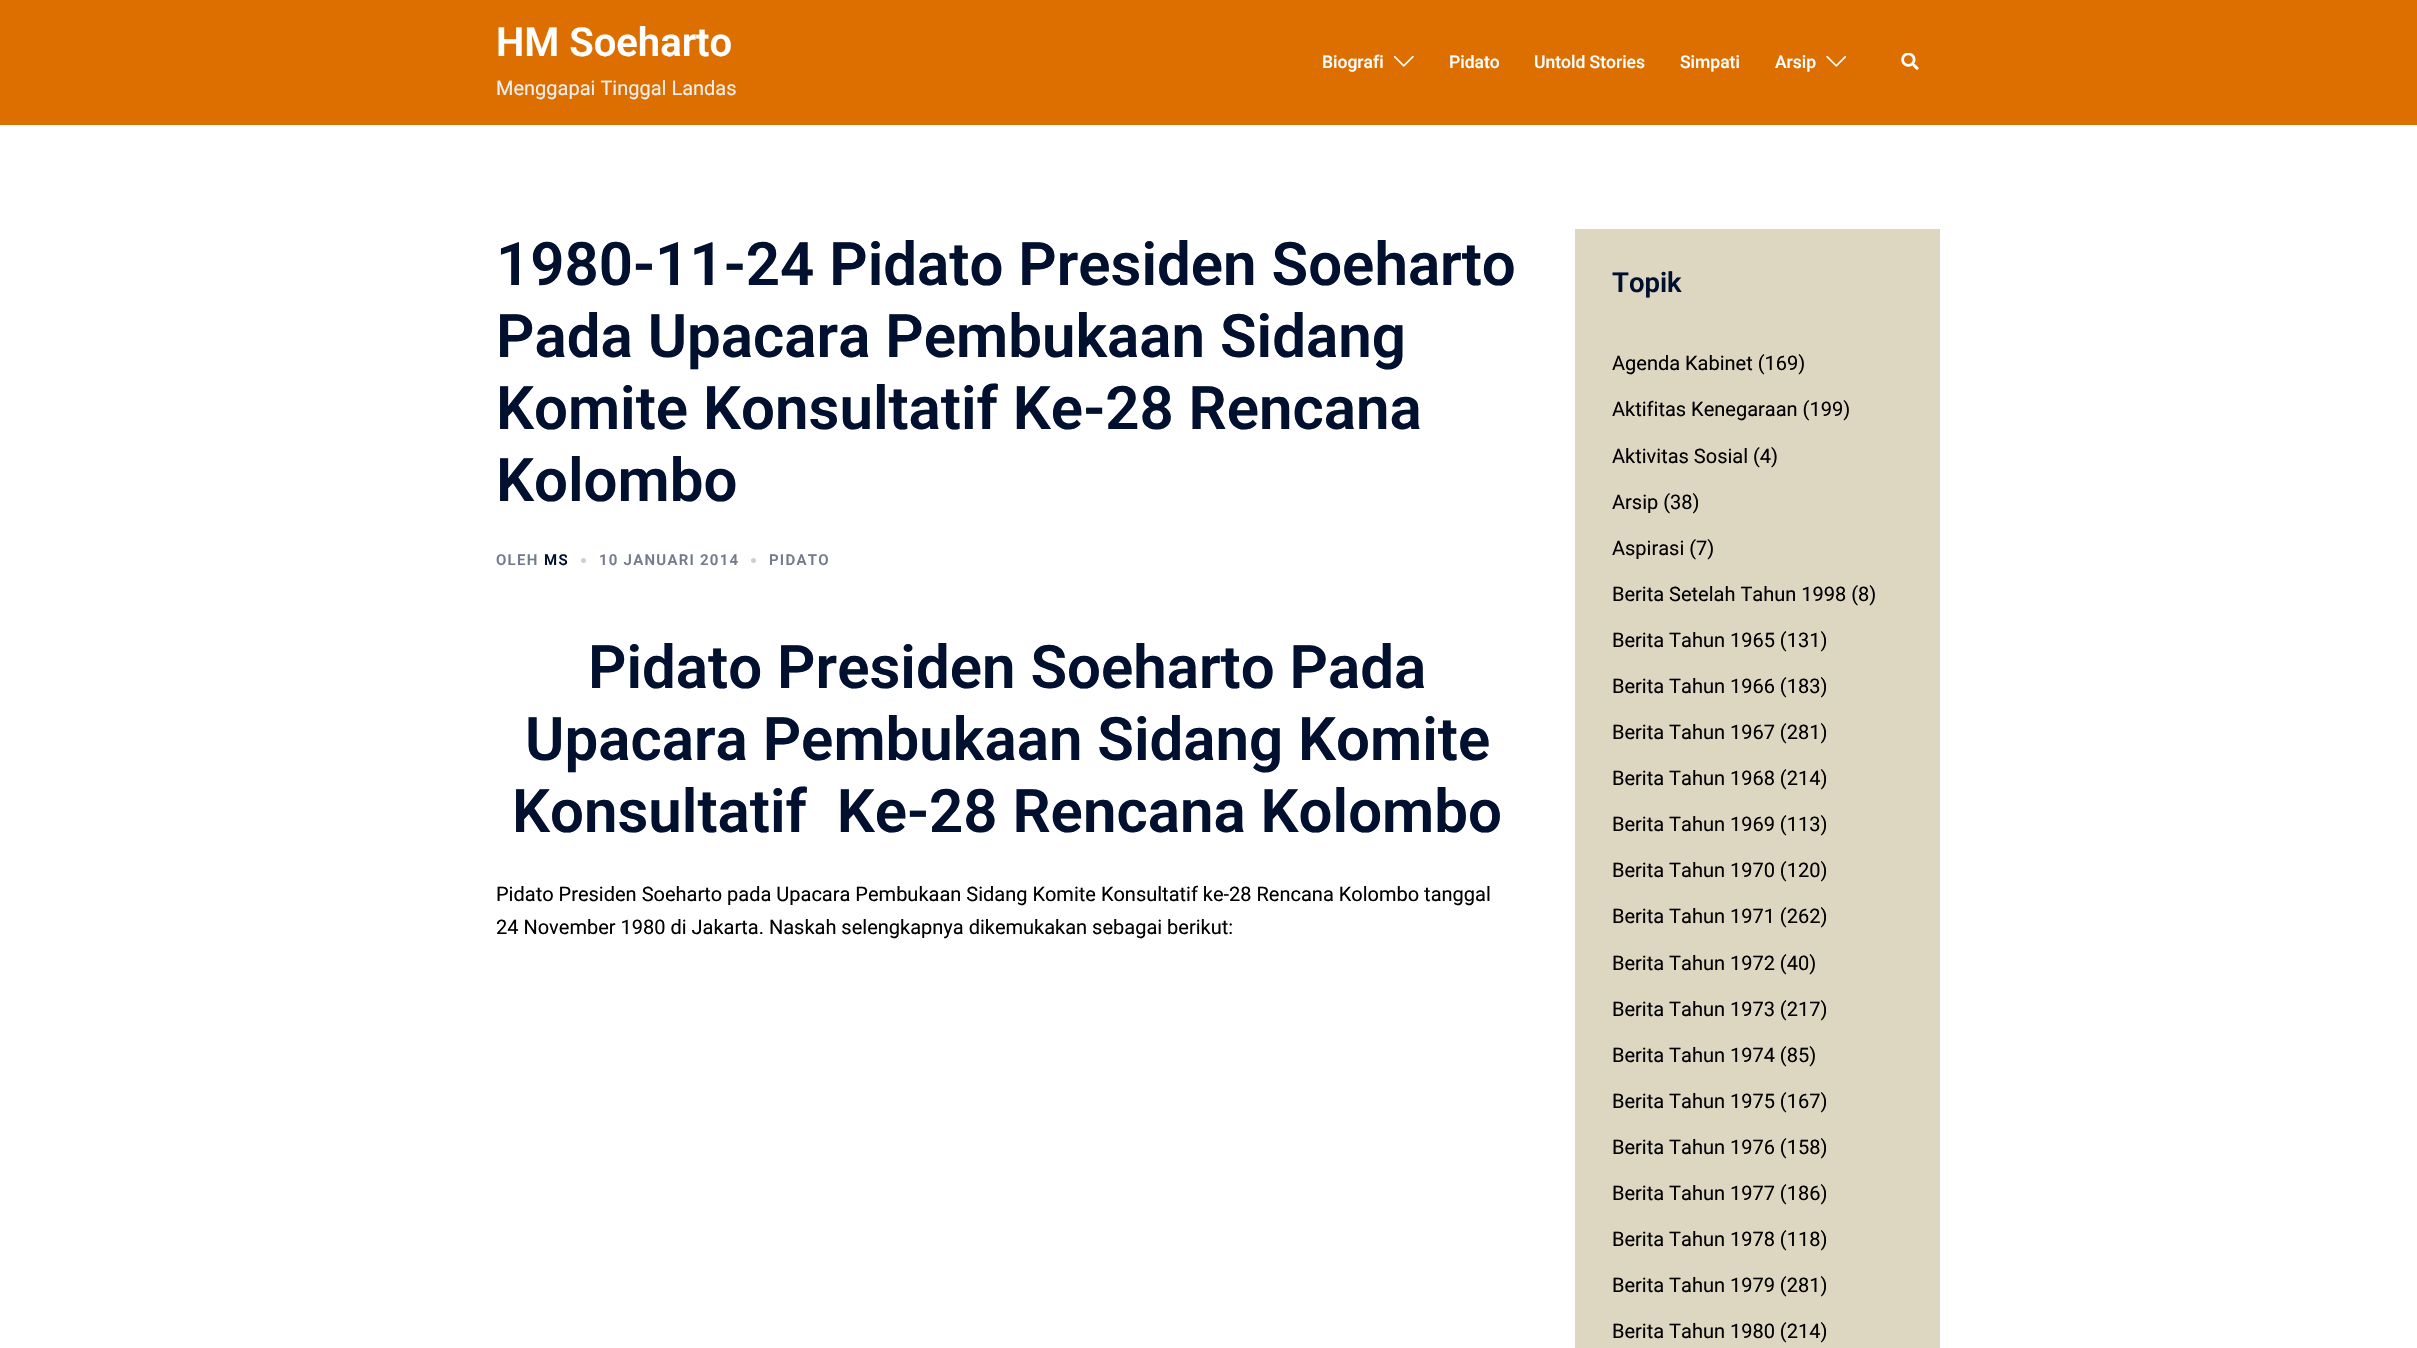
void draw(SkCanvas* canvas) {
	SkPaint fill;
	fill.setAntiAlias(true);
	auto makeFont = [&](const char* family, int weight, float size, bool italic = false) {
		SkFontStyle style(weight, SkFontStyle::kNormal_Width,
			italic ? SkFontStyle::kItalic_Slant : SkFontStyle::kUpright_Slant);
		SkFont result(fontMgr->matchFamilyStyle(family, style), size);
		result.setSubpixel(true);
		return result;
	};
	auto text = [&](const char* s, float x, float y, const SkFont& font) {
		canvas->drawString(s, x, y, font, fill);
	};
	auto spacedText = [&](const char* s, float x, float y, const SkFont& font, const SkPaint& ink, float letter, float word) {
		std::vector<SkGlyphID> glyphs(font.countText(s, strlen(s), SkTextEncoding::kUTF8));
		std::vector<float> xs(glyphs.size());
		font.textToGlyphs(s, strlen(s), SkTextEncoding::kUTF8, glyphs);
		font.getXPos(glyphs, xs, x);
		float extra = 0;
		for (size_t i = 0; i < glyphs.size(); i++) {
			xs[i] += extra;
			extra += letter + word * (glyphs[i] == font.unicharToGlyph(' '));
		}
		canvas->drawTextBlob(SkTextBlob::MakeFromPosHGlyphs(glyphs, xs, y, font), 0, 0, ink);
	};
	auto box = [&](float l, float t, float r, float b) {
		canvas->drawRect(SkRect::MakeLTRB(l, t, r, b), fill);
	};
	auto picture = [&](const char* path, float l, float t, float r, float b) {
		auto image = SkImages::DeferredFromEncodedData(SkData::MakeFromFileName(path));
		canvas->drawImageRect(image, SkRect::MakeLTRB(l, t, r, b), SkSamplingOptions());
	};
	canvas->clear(0xFFFFFFFF);
	fill.setColor(0xFFDD6E00);
	box(0, 0, 2417, 125);
	picture("image0.png", 1394, 55, 1414, 67);
	picture("image1.png", 1826, 55, 1846, 67);
	picture("image2.png", 1901, 53, 1919, 70);
	fill.setColor(0xFFCCCFD5);
	canvas->drawCircle(583.5f, 560.5f, 2.5f, fill);
	canvas->drawCircle(753.5f, 560.5f, 2.5f, fill);
	fill.setColor(0xFFDDD6C1);
	box(1575, 229, 1940, 1348);
	auto font1 = makeFont("Roboto", 600, 40);
	fill.setColor(0xFFFFFFFF);
	text("HM Soeharto", 496, 56, font1);
	auto font2 = makeFont("Roboto", 400, 20);
	fill.setColor(0xFFEFEFEF);
	text("Menggapai Tinggal Landas", 496, 95, font2);
	auto font3 = makeFont("Roboto", 500, 17.5f);
	fill.setColor(0xFFFFFFFF);
	text("Biografi", 1322, 68, font3);
	text("Pidato", 1449, 68, font3);
	text("Untold Stories", 1534, 68, font3);
	text("Simpati", 1680, 68, font3);
	text("Arsip", 1775, 68, font3);
	auto font4 = makeFont("Roboto", 600, 60);
	fill.setColor(0xFF00102E);
	text("1980-11-24 Pidato Presiden Soeharto", 496, 285, font4);
	text("Pada Upacara Pembukaan Sidang", 496, 357, font4);
	text("Komite Konsultatif Ke-28 Rencana", 496, 429, font4);
	text("Kolombo", 496, 501, font4);
	auto font5 = makeFont("Roboto", 600, 15);
	fill.setColor(0xFF737C8C);
	spacedText("OLEH", 496, 565, font5, fill, 1.25f, 0);
	fill.setColor(0xFF00102E);
	spacedText("MS", 544, 565, font5, fill, 1.25f, 0);
	fill.setColor(0xFF737C8C);
	spacedText("10 JANUARI 2014", 599, 565, font5, fill, 1.25f, 0);
	spacedText("PIDATO", 769, 565, font5, fill, 1.25f, 0);
	fill.setColor(0xFF00102E);
	text("Pidato Presiden Soeharto Pada", 588, 688, font4);
	text("Upacara Pembukaan Sidang Komite", 525, 760, font4);
	text("Konsultatif  Ke-28 Rencana Kolombo", 512, 832, font4);
	fill.setColor(0xFF000000);
	text("Pidato Presiden Soeharto pada Upacara Pembukaan Sidang Komite Konsultatif ke-28 Rencana Kolombo tanggal", 496, 901, font2);
	text("24 November 1980 di Jakarta. Naskah selengkapnya dikemukakan sebagai berikut:", 496, 934, font2);
	auto font6 = makeFont("Roboto", 600, 27.5f);
	fill.setColor(0xFF00102E);
	text("Topik", 1612, 292, font6);
	fill.setColor(0xFF000000);
	text("Agenda Kabinet (169)", 1612, 370, font2);
	text("Aktifitas Kenegaraan (199)", 1612, 416, font2);
	text("Aktivitas Sosial (4)", 1612, 463, font2);
	text("Arsip (38)", 1612, 509, font2);
	text("Aspirasi (7)", 1612, 555, font2);
	text("Berita Setelah Tahun 1998 (8)", 1612, 601, font2);
	text("Berita Tahun 1965 (131)", 1612, 647, font2);
	text("Berita Tahun 1966 (183)", 1612, 693, font2);
	text("Berita Tahun 1967 (281)", 1612, 739, font2);
	text("Berita Tahun 1968 (214)", 1612, 785, font2);
	text("Berita Tahun 1969 (113)", 1612, 831, font2);
	text("Berita Tahun 1970 (120)", 1612, 877, font2);
	text("Berita Tahun 1971 (262)", 1612, 923, font2);
	text("Berita Tahun 1972 (40)", 1612, 970, font2);
	text("Berita Tahun 1973 (217)", 1612, 1016, font2);
	text("Berita Tahun 1974 (85)", 1612, 1062, font2);
	text("Berita Tahun 1975 (167)", 1612, 1108, font2);
	text("Berita Tahun 1976 (158)", 1612, 1154, font2);
	text("Berita Tahun 1977 (186)", 1612, 1200, font2);
	text("Berita Tahun 1978 (118)", 1612, 1246, font2);
	text("Berita Tahun 1979 (281)", 1612, 1292, font2);
	text("Berita Tahun 1980 (214)", 1612, 1338, font2);
}
